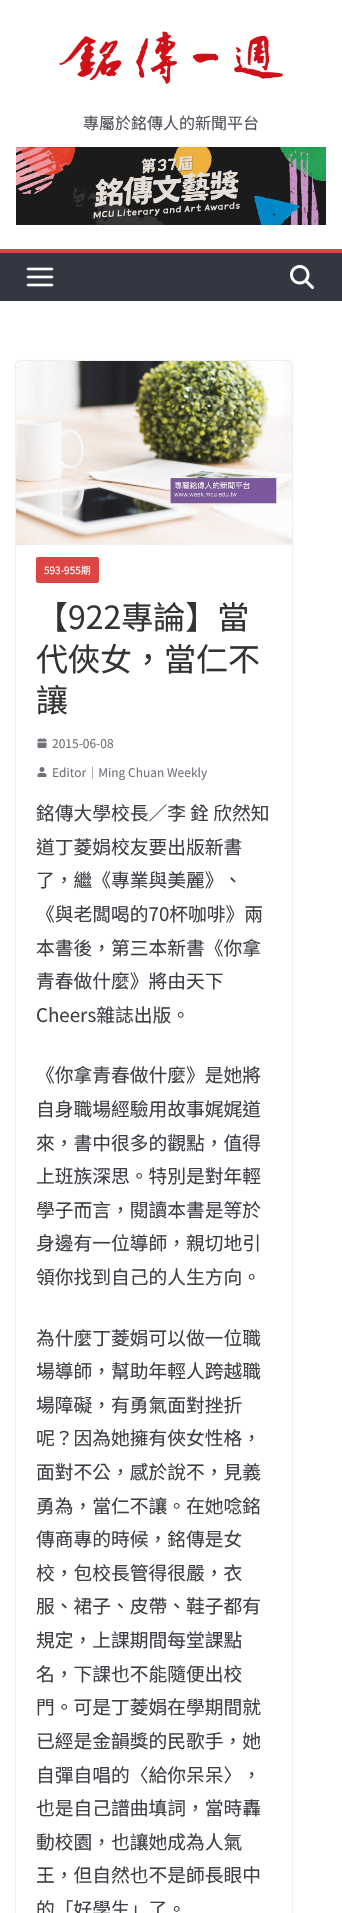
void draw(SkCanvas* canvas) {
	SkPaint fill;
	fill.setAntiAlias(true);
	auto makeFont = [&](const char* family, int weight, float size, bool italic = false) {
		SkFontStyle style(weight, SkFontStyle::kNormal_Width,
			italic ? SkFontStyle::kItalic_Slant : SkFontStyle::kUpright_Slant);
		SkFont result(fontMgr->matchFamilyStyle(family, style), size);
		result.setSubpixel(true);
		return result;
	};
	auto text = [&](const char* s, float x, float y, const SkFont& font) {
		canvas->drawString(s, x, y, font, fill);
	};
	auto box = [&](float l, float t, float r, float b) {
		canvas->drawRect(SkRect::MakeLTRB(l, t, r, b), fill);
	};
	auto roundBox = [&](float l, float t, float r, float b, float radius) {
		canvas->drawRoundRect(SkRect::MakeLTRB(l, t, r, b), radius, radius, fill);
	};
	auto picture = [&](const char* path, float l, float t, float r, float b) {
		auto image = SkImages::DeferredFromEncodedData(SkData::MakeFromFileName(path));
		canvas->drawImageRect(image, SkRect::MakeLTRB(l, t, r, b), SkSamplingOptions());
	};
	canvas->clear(0xFFFFFFFF);
	picture("image0.png", 59, 31, 283, 85);
	picture("image1.png", 16, 147, 326, 225);
	fill.setColor(0xFF343642);
	box(0, 253, 342, 301);
	fill.setColor(0xFFDD4444);
	box(0, 249, 342, 253);
	picture("image2.png", 26, 267, 54, 287);
	picture("image3.png", 290, 265, 314, 289);
	canvas->save();
	canvas->clipPath(SkPathBuilder(SkPathFillType::kEvenOdd).moveTo(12, 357).lineTo(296, 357).lineTo(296, 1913).lineTo(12, 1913).close().moveTo(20, 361).lineTo(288, 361).cubicTo(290, 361, 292, 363, 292, 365).lineTo(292, 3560).cubicTo(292, 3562, 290, 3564, 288, 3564).lineTo(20, 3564).cubicTo(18, 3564, 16, 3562, 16, 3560).lineTo(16, 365).cubicTo(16, 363, 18, 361, 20, 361).close().detach(), true);
	fill.setColor(0x3D000000);
	fill.setMaskFilter(SkMaskFilter::MakeBlur(kNormal_SkBlurStyle, 1));
	canvas->drawRoundRect(SkRect::MakeLTRB(16, 361, 292, 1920), 4, 4, fill);
	fill.setMaskFilter(nullptr);
	canvas->restore();
	picture("image4.png", 16, 361, 292, 545);
	fill.setColor(0xFFDD4444);
	roundBox(36, 557, 99, 583, 2);
	picture("image5.png", 37, 738, 47, 748);
	picture("image6.png", 37, 767, 47, 777);
	auto font1 = makeFont("Noto Sans TC", 400, 16);
	fill.setColor(0xFF52525B);
	text("專屬於銘傳人的新聞平台", 83, 129, font1);
	auto font2 = makeFont("Noto Sans TC", 400, 10);
	fill.setColor(0xFFFFFFFF);
	text("593-955期", 44, 574, font2);
	auto font3 = makeFont("Noto Sans TC", 400, 32);
	fill.setColor(0xFF333333);
	text("【922專論】當", 36, 629, font3);
	text("代俠女，當仁不", 36, 671, font3);
	text("讓", 36, 712, font3);
	auto font4 = makeFont("Noto Sans TC", 400, 12);
	fill.setColor(0xFF71717A);
	text("2015-06-08", 52, 748, font4);
	text("Editor｜Ming Chuan Weekly", 52, 777, font4);
	auto font5 = makeFont("Noto Sans TC", 400, 18.75f);
	fill.setColor(0xFF3F3F46);
	text("銘傳大學校長／李 銓 欣然知", 36, 820, font5);
	text("道丁菱娟校友要出版新書", 36, 854, font5);
	text("了，繼《專業與美麗》、", 36, 887, font5);
	text("《與老闆喝的70杯咖啡》兩", 36, 921, font5);
	text("本書後，第三本新書《你拿", 36, 955, font5);
	text("青春做什麼》將由天下", 36, 988, font5);
	text("Cheers雜誌出版。", 36, 1022, font5);
	text("《你拿青春做什麼》是她將", 36, 1082, font5);
	text("自身職場經驗用故事娓娓道", 36, 1116, font5);
	text("來，書中很多的觀點，值得", 36, 1150, font5);
	text("上班族深思。特別是對年輕", 36, 1183, font5);
	text("學子而言，閱讀本書是等於", 36, 1217, font5);
	text("身邊有一位導師，親切地引", 36, 1250, font5);
	text("領你找到自己的人生方向。", 36, 1284, font5);
	text("為什麼丁菱娟可以做一位職", 36, 1345, font5);
	text("場導師，幫助年輕人跨越職", 36, 1378, font5);
	text("場障礙，有勇氣面對挫折", 36, 1412, font5);
	text("呢？因為她擁有俠女性格，", 36, 1445, font5);
	text("面對不公，感於說不，見義", 36, 1479, font5);
	text("勇為，當仁不讓。在她唸銘", 36, 1513, font5);
	text("傳商專的時候，銘傳是女", 36, 1546, font5);
	text("校，包校長管得很嚴，衣", 36, 1580, font5);
	text("服、裙子、皮帶、鞋子都有", 36, 1613, font5);
	text("規定，上課期間每堂課點", 36, 1647, font5);
	text("名，下課也不能隨便出校", 36, 1681, font5);
	text("門。可是丁菱娟在學期間就", 36, 1714, font5);
	text("已經是金韻獎的民歌手，她", 36, 1748, font5);
	text("自彈自唱的〈給你呆呆〉，", 36, 1782, font5);
	text("也是自己譜曲填詞，當時轟", 36, 1815, font5);
	text("動校園，也讓她成為人氣", 36, 1849, font5);
	text("王，但自然也不是師長眼中", 36, 1882, font5);
	text("的「好學生」了。", 36, 1916, font5);
}
